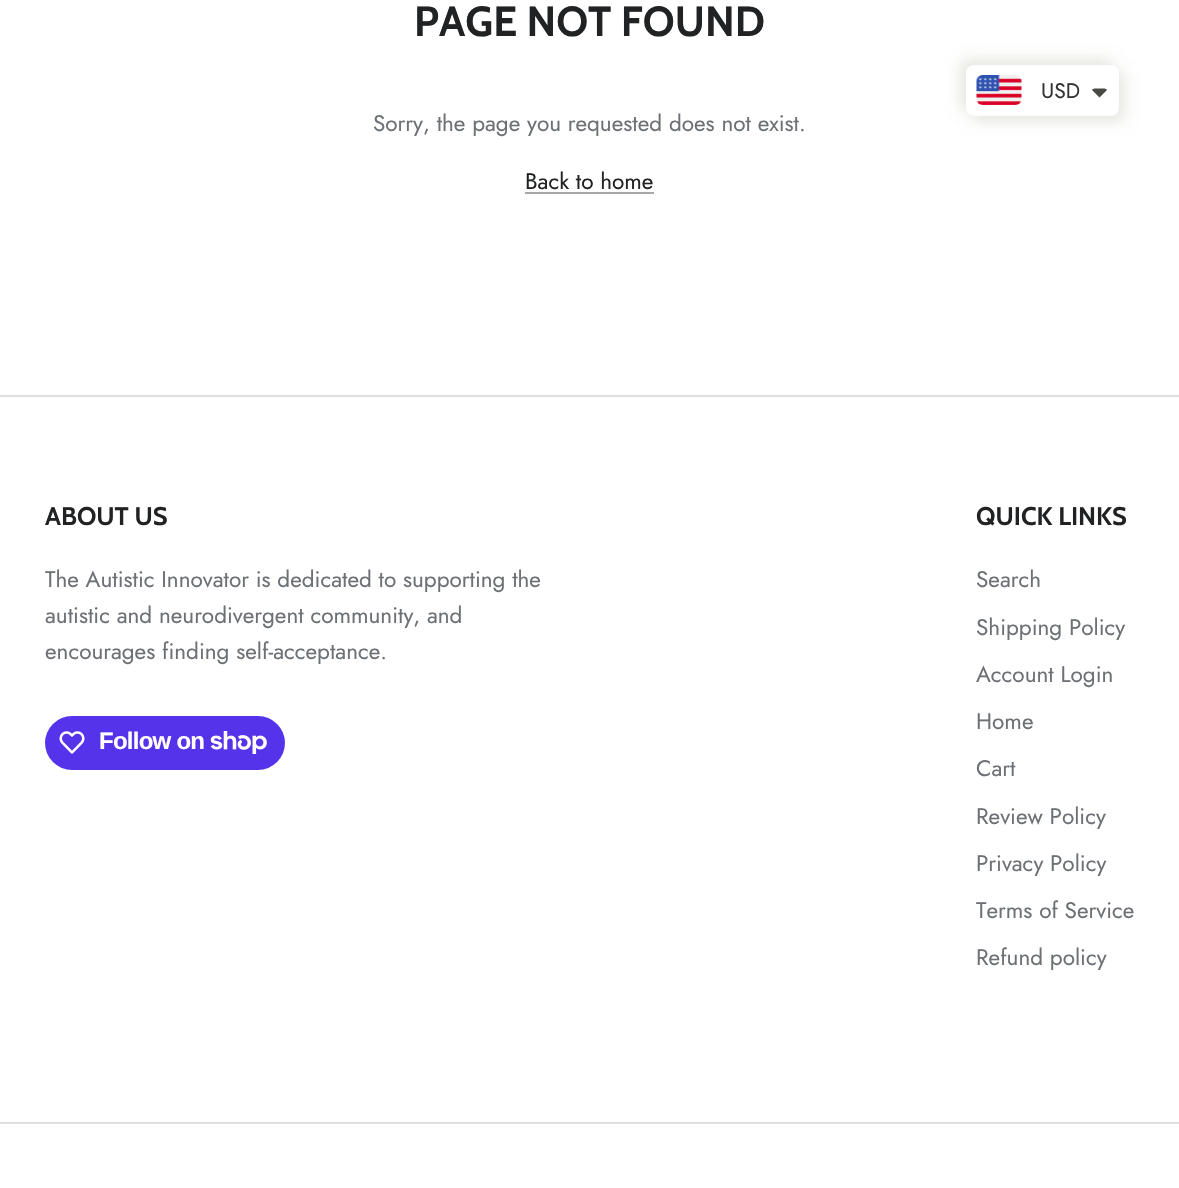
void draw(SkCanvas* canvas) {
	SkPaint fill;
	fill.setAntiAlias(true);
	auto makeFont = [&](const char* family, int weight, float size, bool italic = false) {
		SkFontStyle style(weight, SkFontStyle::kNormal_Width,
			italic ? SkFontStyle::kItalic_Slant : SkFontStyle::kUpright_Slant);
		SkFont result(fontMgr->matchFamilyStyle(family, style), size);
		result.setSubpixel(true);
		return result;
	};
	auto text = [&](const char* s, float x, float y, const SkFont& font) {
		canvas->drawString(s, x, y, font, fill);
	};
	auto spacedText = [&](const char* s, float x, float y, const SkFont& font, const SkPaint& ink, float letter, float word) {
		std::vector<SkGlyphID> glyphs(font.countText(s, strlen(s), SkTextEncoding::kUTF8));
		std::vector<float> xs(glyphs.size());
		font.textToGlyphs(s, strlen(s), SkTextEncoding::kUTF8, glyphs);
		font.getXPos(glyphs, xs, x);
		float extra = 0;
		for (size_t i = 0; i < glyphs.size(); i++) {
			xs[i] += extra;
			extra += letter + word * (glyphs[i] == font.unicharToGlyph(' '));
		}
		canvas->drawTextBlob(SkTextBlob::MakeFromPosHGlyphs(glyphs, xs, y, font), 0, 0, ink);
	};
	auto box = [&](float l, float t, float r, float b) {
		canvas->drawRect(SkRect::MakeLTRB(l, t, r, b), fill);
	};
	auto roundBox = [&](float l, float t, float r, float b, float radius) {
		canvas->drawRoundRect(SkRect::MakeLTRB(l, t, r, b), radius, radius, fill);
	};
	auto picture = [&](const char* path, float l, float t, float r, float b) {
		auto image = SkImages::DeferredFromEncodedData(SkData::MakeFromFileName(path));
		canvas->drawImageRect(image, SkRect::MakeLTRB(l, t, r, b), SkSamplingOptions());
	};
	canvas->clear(0xFFFFFFFF);
	fill.setColor(0xFFA6A7A7);
	box(525, 192, 654, 194);
	fill.setColor(0xFFE8E8E2);
	fill.setMaskFilter(SkMaskFilter::MakeBlur(kNormal_SkBlurStyle, 7));
	canvas->drawRoundRect(SkRect::MakeLTRB(960, 59, 1113, 110), 8, 8, fill);
	fill.setMaskFilter(nullptr);
	fill.setMaskFilter(SkMaskFilter::MakeBlur(kNormal_SkBlurStyle, 7));
	canvas->drawRoundRect(SkRect::MakeLTRB(972, 71, 1125, 122), 8, 8, fill);
	fill.setMaskFilter(nullptr);
	fill.setColor(0xFFFFFFFF);
	roundBox(966, 65, 1119, 116, 8);
	picture("image0.png", 976, 75, 1022, 105);
	fill.setColor(0xFF474942);
	canvas->drawPath(SkPathBuilder().moveTo(1095, 88.5f).cubicTo(1094, 88.5f, 1092.5f, 89, 1092, 90).lineTo(1099.5f, 97.5f).lineTo(1107, 90).cubicTo(1106.5f, 89, 1105, 88.5f, 1104, 88.5f).close().detach(), fill);
	fill.setColor(0xFFE0E0E0);
	box(0, 395, 1179, 397);
	fill.setColor(0xFF5433EB);
	roundBox(45, 716, 285, 770, 27);
	picture("image1.png", 59, 731, 85, 754);
	picture("image2.png", 210, 731, 267, 754);
	fill.setColor(0xFFE0E0E0);
	box(0, 1122, 1179, 1124);
	auto font1 = makeFont("Cabin", 700, 42);
	fill.setColor(0xFF202223);
	text("PAGE NOT FOUND", 414, 36, font1);
	auto font2 = makeFont("Jost", 400, 22.5f);
	fill.setColor(0xFF6D7175);
	text("Sorry, the page you requested does not exist.", 373, 131, font2);
	fill.setColor(0xFF202223);
	text("Back to home", 525, 189, font2);
	auto font3 = makeFont("Jost", 400, 21);
	fill.setColor(0xFF333333);
	text("USD", 1041, 98, font3);
	auto font4 = makeFont("Cabin", 700, 25.5f);
	fill.setColor(0xFF202223);
	text("ABOUT US", 45, 525, font4);
	fill.setColor(0xFF6D7175);
	text("The Autistic Innovator is dedicated to supporting the", 45, 587, font2);
	text("autistic and neurodivergent community, and", 45, 623, font2);
	text("encourages finding self-acceptance.", 45, 659, font2);
	auto font5 = makeFont("Liberation Sans", 700, 24);
	fill.setColor(0xFFFFFFFF);
	spacedText("Follow on", 99, 749, font5, fill, -0.75f, 0);
	fill.setColor(0xFF202223);
	text("QUICK LINKS", 976, 525, font4);
	fill.setColor(0xFF6D7175);
	text("Search", 976, 587, font2);
	text("Shipping Policy", 976, 635, font2);
	text("Account Login", 976, 682, font2);
	text("Home", 976, 729, font2);
	text("Cart", 976, 776, font2);
	text("Review Policy", 976, 824, font2);
	text("Privacy Policy", 976, 871, font2);
	text("Terms of Service", 976, 918, font2);
	text("Refund policy", 976, 965, font2);
}
